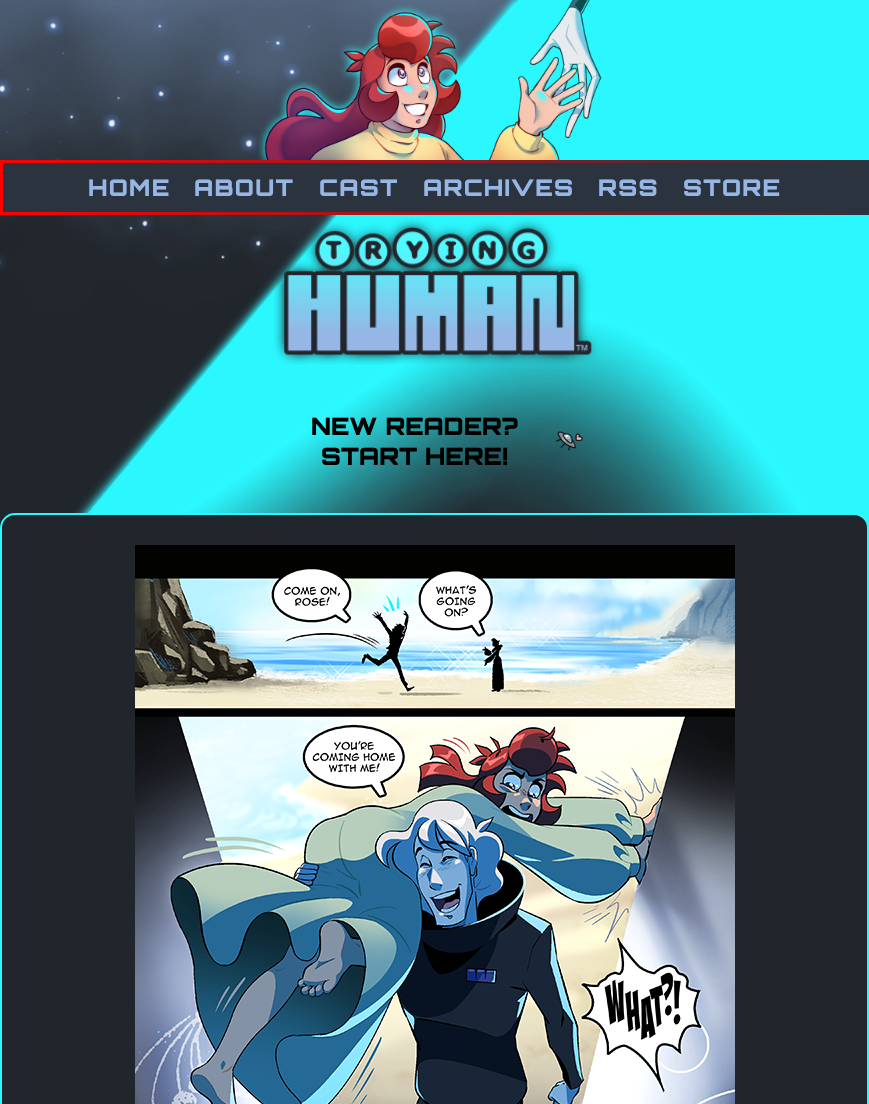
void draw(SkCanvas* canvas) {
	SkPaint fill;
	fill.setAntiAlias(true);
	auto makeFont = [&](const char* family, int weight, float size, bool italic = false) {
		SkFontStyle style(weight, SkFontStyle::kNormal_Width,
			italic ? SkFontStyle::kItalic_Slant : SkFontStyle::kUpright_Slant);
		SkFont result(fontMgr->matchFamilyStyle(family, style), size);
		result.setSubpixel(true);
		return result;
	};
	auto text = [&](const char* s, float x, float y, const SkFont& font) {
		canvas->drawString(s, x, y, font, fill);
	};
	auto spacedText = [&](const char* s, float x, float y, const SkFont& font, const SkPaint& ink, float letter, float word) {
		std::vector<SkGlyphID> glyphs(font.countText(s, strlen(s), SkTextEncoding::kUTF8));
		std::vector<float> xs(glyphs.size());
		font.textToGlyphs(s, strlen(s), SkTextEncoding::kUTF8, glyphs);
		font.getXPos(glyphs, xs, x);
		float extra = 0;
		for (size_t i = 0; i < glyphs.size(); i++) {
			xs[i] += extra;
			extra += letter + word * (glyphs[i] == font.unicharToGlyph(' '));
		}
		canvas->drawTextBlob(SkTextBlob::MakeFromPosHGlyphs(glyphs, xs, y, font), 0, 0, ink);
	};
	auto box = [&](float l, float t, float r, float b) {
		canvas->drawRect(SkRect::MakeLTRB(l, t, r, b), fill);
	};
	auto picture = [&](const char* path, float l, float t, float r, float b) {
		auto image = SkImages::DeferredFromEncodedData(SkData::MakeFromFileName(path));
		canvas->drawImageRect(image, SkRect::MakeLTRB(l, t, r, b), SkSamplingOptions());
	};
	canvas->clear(0xFF21262C);
	picture("image0.png", 0, 0, 869, 528);
	picture("image1.png", 258, 0, 602, 160);
	{
		const SkColor colors[] = {0xFFFF0000, 0xFF2B333E};
		const float stops[] = {0, 1};
		const SkPoint ends[] = {{0, 188}, {869, 187}};
		fill.setShader(SkGradientShader::MakeLinear(ends, colors, stops, 2, SkTileMode::kClamp));
		fill.setAlpha(255);
	}
	box(0, 160, 869, 215);
	fill.setShader(nullptr);
	fill.setColor(0xFF2B333E);
	box(3, 163, 859, 212);
	picture("image2.png", 274, 218, 597, 365);
	picture("image3.png", 556, 431, 583, 451);
	fill.setColor(0xFF21262C);
	canvas->drawRoundRect(SkRect::MakeLTRB(1, 514, 868, 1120), 14, 14, fill);
	fill.setStyle(SkPaint::kStroke_Style);
	fill.setStrokeWidth(2);
	fill.setColor(0xFF2BF7FE);
	canvas->drawRoundRect(SkRect::MakeLTRB(1, 514, 868, 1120), 14, 14, fill);
	picture("image4.png", 135, 545, 735, 1104);
	auto font1 = makeFont("Orbitron", 900, 23);
	fill.setStyle(SkPaint::kFill_Style);
	fill.setColor(0xFF96B7E6);
	spacedText("HOME", 88, 196, font1, fill, 1.25f, 0);
	spacedText("ABOUT", 194, 196, font1, fill, 1.25f, 0);
	spacedText("CAST", 319, 196, font1, fill, 1.25f, 0);
	spacedText("ARCHIVES", 423, 196, font1, fill, 1.25f, 0);
	spacedText("RSS", 598, 196, font1, fill, 1.25f, 0);
	spacedText("STORE", 683, 196, font1, fill, 1.25f, 0);
	auto font2 = makeFont("Orbitron", 900, 24);
	fill.setColor(0xFF000000);
	text("NEW READER?", 311, 435, font2);
	text("START HERE!", 321, 465, font2);
}
